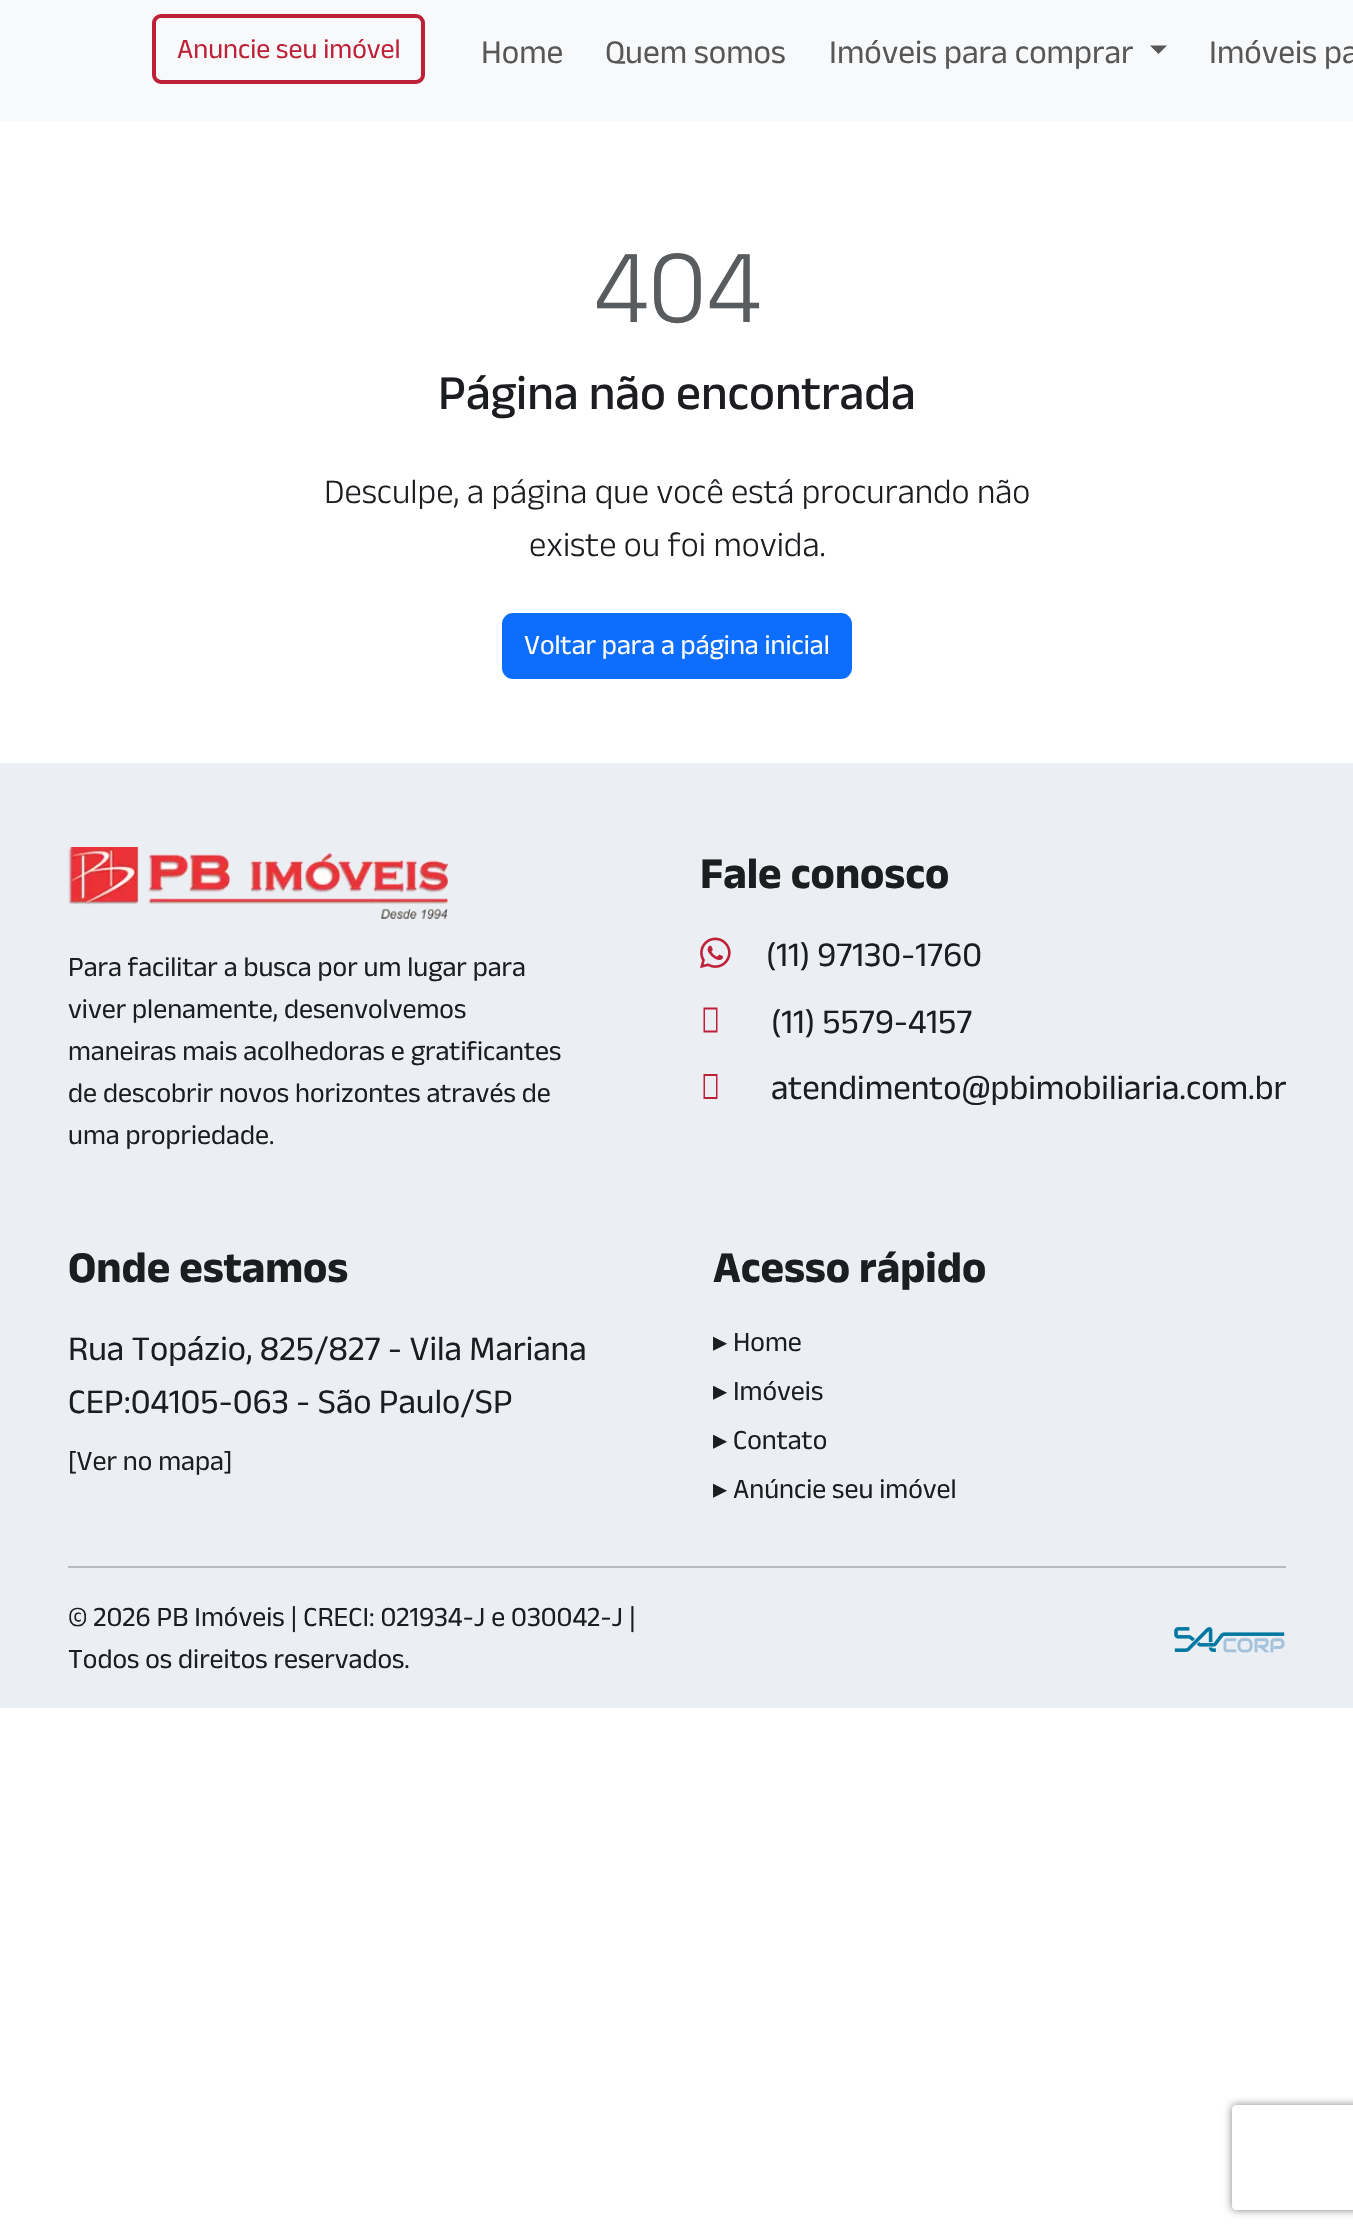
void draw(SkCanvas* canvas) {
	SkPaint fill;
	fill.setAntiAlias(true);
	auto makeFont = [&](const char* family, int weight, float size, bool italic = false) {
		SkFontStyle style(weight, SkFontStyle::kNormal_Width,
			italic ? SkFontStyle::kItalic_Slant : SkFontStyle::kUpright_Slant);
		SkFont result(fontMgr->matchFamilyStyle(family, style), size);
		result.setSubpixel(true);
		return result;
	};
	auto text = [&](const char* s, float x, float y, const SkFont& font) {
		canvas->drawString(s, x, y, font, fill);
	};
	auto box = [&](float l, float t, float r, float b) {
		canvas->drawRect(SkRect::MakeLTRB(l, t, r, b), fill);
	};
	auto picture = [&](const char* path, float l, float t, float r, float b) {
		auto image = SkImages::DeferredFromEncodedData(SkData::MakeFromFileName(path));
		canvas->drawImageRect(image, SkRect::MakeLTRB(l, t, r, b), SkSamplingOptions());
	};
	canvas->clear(0xFFFFFFFF);
	fill.setColor(0xFFF8F9FA);
	box(0, 0, 1353, 121);
	fill.setStyle(SkPaint::kStroke_Style);
	fill.setStrokeWidth(4);
	fill.setColor(0xFFBE2137);
	canvas->drawRoundRect(SkRect::MakeLTRB(154, 16, 423, 82), 7, 7, fill);
	fill.setStyle(SkPaint::kFill_Style);
	fill.setColor(0xFF575758);
	canvas->drawPath(SkPathBuilder().moveTo(1150, 45.5f).lineTo(1167, 45.5f).lineTo(1158.5f, 54).close().detach(), fill);
	fill.setColor(0xFF0D6EFD);
	canvas->drawRoundRect(SkRect::MakeLTRB(503, 614, 851, 678), 10, 10, fill);
	fill.setStyle(SkPaint::kStroke_Style);
	fill.setStrokeWidth(2);
	canvas->drawRoundRect(SkRect::MakeLTRB(503, 614, 851, 678), 10, 10, fill);
	fill.setStyle(SkPaint::kFill_Style);
	fill.setColor(0xFFEBEEF3);
	box(0, 763, 1353, 1708);
	picture("image0.png", 68, 847, 448, 919);
	picture("image1.png", 700, 937, 731, 969);
	fill.setColor(0xFFBE2137);
	canvas->drawPath(SkPathBuilder().moveTo(703.5f, 1032.5f).lineTo(703.5f, 1007.5f).lineTo(717.5f, 1007.5f).lineTo(717.5f, 1032.5f).close().moveTo(705, 1030.5f).lineTo(716, 1030.5f).lineTo(716, 1009.5f).lineTo(705, 1009.5f).close().detach(), fill);
	canvas->drawPath(SkPathBuilder().moveTo(703.5f, 1099).lineTo(703.5f, 1074).lineTo(717.5f, 1074).lineTo(717.5f, 1099).close().moveTo(705, 1097).lineTo(716, 1097).lineTo(716, 1076).lineTo(705, 1076).close().detach(), fill);
	fill.setColor(0xFFB7BABE);
	box(68, 1566, 1286, 1568);
	picture("image2.png", 1174, 1627, 1285, 1653);
	canvas->save();
	canvas->clipPath(SkPathBuilder(SkPathFillType::kEvenOdd).moveTo(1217, 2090).lineTo(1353, 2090).lineTo(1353, 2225).lineTo(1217, 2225).close().moveTo(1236, 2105).lineTo(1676, 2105).cubicTo(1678, 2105, 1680, 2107, 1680, 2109).lineTo(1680, 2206).cubicTo(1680, 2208, 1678, 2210, 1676, 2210).lineTo(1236, 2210).cubicTo(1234, 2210, 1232, 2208, 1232, 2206).lineTo(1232, 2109).cubicTo(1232, 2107, 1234, 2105, 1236, 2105).close().detach(), true);
	fill.setColor(0xFF808080);
	fill.setMaskFilter(SkMaskFilter::MakeBlur(kNormal_SkBlurStyle, 4.5f));
	canvas->drawRoundRect(SkRect::MakeLTRB(1232, 2105, 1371, 2210), 4, 4, fill);
	fill.setMaskFilter(nullptr);
	canvas->restore();
	auto font1 = makeFont("Anek Latin", 400, 28);
	fill.setColor(0xFFBE2137);
	text("Anuncie seu imóvel", 177, 58, font1);
	auto font2 = makeFont("Anek Latin", 400, 33.5f);
	fill.setColor(0xFF575758);
	text("Home", 481, 63, font2);
	text("Quem somos", 605, 63, font2);
	text("Imóveis para comprar", 829, 63, font2);
	text("Imóveis pa", 1209, 63, font2);
	auto font3 = makeFont("Anek Latin", 300, 106);
	fill.setColor(0xFF595C5F);
	text("404", 594, 322, font3);
	auto font4 = makeFont("Anek Latin", 500, 49.25f);
	fill.setColor(0xFF1B1D20);
	text("Página não encontrada", 438, 409, font4);
	auto font5 = makeFont("Anek Latin", 300, 35);
	text("Desculpe, a página que você está procurando não", 324, 503, font5);
	text("existe ou foi movida.", 529, 556, font5);
	fill.setColor(0xFFFFFFFF);
	text("Voltar para a página inicial", 524, 654, font1);
	fill.setColor(0xFF1B1D20);
	text("Para facilitar a busca por um lugar para", 68, 976, font1);
	text("viver plenamente, desenvolvemos", 68, 1018, font1);
	text("maneiras mais acolhedoras e gratificantes", 68, 1060, font1);
	text("de descobrir novos horizontes através de", 68, 1102, font1);
	text("uma propriedade.", 68, 1144, font1);
	auto font6 = makeFont("Anek Latin", 700, 44.5f);
	text("Fale conosco", 700, 888, font6);
	auto font7 = makeFont("Anek Latin", 400, 35);
	text("(11) 97130-1760", 766, 966, font7);
	text("(11) 5579-4157", 771, 1033, font7);
	text("atendimento@pbimobiliaria.com.br", 771, 1099, font7);
	text("Onde estamos", 68, 1282, font6);
	text("Rua Topázio, 825/827 - Vila Mariana", 68, 1360, font7);
	text("CEP:04105-063 - São Paulo/SP", 68, 1413, font7);
	text("[Ver no mapa]", 68, 1470, font1);
	text("Acesso rápido", 713, 1282, font6);
	auto font8 = makeFont("DejaVu Sans", 400, 28);
	text("▸", 713, 1351, font8);
	text("Home", 733, 1351, font1);
	text("▸", 713, 1400, font8);
	text("Imóveis", 733, 1400, font1);
	text("▸", 713, 1449, font8);
	text("Contato", 733, 1449, font1);
	text("▸", 713, 1498, font8);
	text("Anúncie seu imóvel", 733, 1498, font1);
	text("© 2026 PB Imóveis | CRECI: 021934-J e 030042-J |", 68, 1626, font1);
	text("Todos os direitos reservados.", 68, 1668, font1);
}
